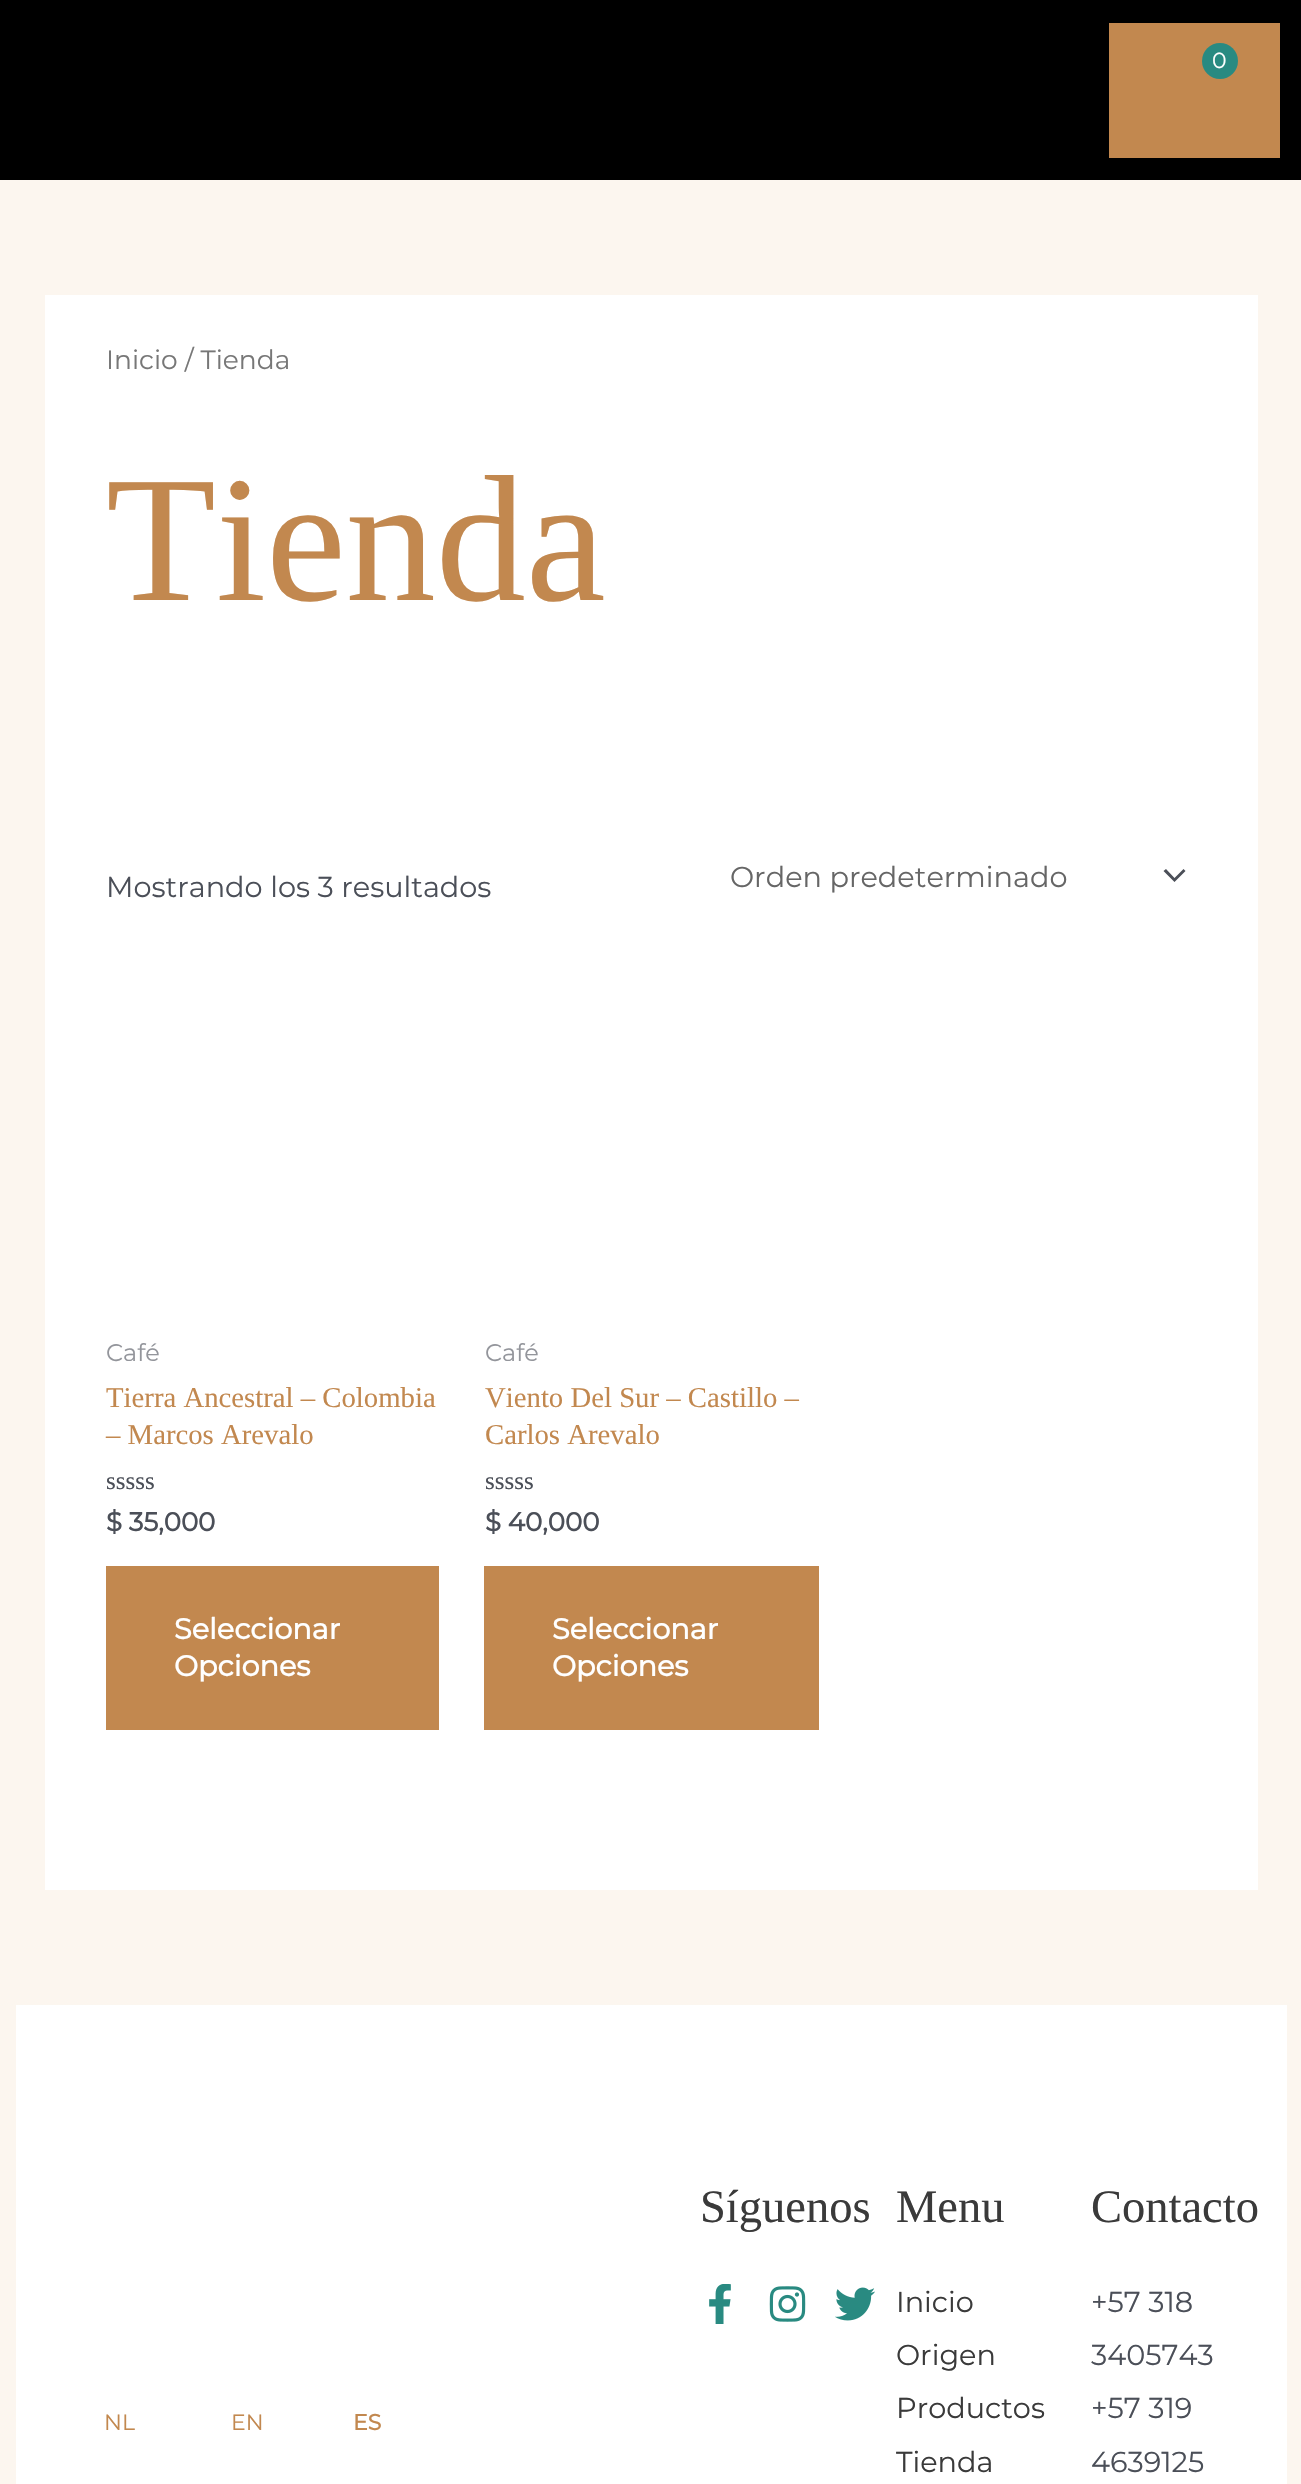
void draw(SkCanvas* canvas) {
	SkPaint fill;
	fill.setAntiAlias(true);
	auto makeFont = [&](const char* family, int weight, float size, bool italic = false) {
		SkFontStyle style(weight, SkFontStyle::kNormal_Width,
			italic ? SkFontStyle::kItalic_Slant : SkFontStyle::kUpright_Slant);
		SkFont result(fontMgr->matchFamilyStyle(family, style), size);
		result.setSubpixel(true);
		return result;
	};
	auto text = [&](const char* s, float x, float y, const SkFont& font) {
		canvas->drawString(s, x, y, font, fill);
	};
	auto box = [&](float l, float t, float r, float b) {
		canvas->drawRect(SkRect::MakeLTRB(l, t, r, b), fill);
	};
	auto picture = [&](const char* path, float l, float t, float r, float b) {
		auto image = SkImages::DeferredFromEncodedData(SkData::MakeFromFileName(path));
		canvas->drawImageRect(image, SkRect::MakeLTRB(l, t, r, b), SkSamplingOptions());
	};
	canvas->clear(0xFFFCF6EF);
	fill.setColor(0xFF000000);
	box(0, 0, 1301, 180);
	fill.setColor(0xFFC2884F);
	box(1109, 23, 1280, 158);
	fill.setColor(0xFF298A81);
	canvas->drawCircle(1220, 61, 18, fill);
	fill.setColor(0xFFFFFFFF);
	box(45, 295, 1258, 1890);
	fill.setColor(0xFF4B4F58);
	canvas->drawPath(SkPathBuilder().moveTo(1163.5f, 871).lineTo(1174.5f, 882).lineTo(1185.5f, 871).lineTo(1183.5f, 869).lineTo(1174.5f, 878).lineTo(1166, 869).close().detach(), fill);
	fill.setColor(0xFFC2884F);
	box(106, 1566, 439, 1730);
	box(484, 1566, 819, 1730);
	fill.setColor(0xFFFFFFFF);
	box(16, 2005, 1287, 2484);
	picture("image0.png", 709, 2284, 731, 2324);
	picture("image1.png", 769, 2286, 806, 2322);
	picture("image2.png", 835, 2287, 875, 2321);
	auto font1 = makeFont("Montserrat", 100, 22);
	text("0", 1212, 68, font1);
	auto font2 = makeFont("Montserrat", 100, 26.5f);
	fill.setColor(0xFF777777);
	text("Inicio / Tienda", 106, 369, font2);
	auto font3 = makeFont("Liberation Serif", 400, 180);
	fill.setColor(0xFFC2884F);
	text("Tienda", 106, 600, font3);
	auto font4 = makeFont("Montserrat", 100, 28.75f);
	fill.setColor(0xFF4B4F58);
	text("Mostrando los 3 resultados", 106, 897, font4);
	fill.setColor(0xFF666666);
	text("Orden predeterminado", 730, 887, font4);
	auto font5 = makeFont("Montserrat", 100, 24);
	fill.setColor(0xFF93959B);
	text("Café", 106, 1361, font5);
	auto font6 = makeFont("Liberation Serif", 400, 28.75f);
	fill.setColor(0xFFC2884F);
	text("Tierra Ancestral – Colombia", 106, 1407, font6);
	text("– Marcos Arevalo", 106, 1444, font6);
	auto font7 = makeFont("Liberation Serif", 400, 25);
	fill.setColor(0xFF4B4F58);
	text("sssss", 106, 1489, font7);
	auto font8 = makeFont("Montserrat", 700, 26);
	text("$ 35,000", 106, 1531, font8);
	auto font9 = makeFont("Montserrat", 700, 28.75f);
	fill.setColor(0xFFFFFFFF);
	text("Seleccionar", 174, 1639, font9);
	text("Opciones", 174, 1676, font9);
	fill.setColor(0xFF93959B);
	text("Café", 485, 1361, font5);
	fill.setColor(0xFFC2884F);
	text("Viento Del Sur – Castillo –", 485, 1407, font6);
	text("Carlos Arevalo", 485, 1444, font6);
	fill.setColor(0xFF4B4F58);
	text("sssss", 485, 1489, font7);
	text("$ 40,000", 485, 1531, font8);
	fill.setColor(0xFFFFFFFF);
	text("Seleccionar", 552, 1639, font9);
	text("Opciones", 552, 1676, font9);
	auto font10 = makeFont("Liberation Serif", 400, 46.5f);
	fill.setColor(0xFF3A3A3A);
	text("Síguenos", 700, 2222, font10);
	text("Menu", 896, 2222, font10);
	text("Inicio", 896, 2312, font4);
	text("Origen", 896, 2365, font4);
	text("Productos", 896, 2418, font4);
	text("Tienda", 896, 2472, font4);
	text("Contacto", 1091, 2222, font10);
	fill.setColor(0xFF4B4F58);
	text("+57 318", 1091, 2312, font4);
	text("3405743", 1091, 2365, font4);
	text("+57 319", 1091, 2418, font4);
	text("4639125", 1091, 2472, font4);
	fill.setColor(0xFFC2884F);
	text("NL", 104, 2430, font1);
	text("EN", 231, 2430, font1);
	auto font11 = makeFont("Montserrat", 700, 22);
	text("ES", 353, 2430, font11);
}
